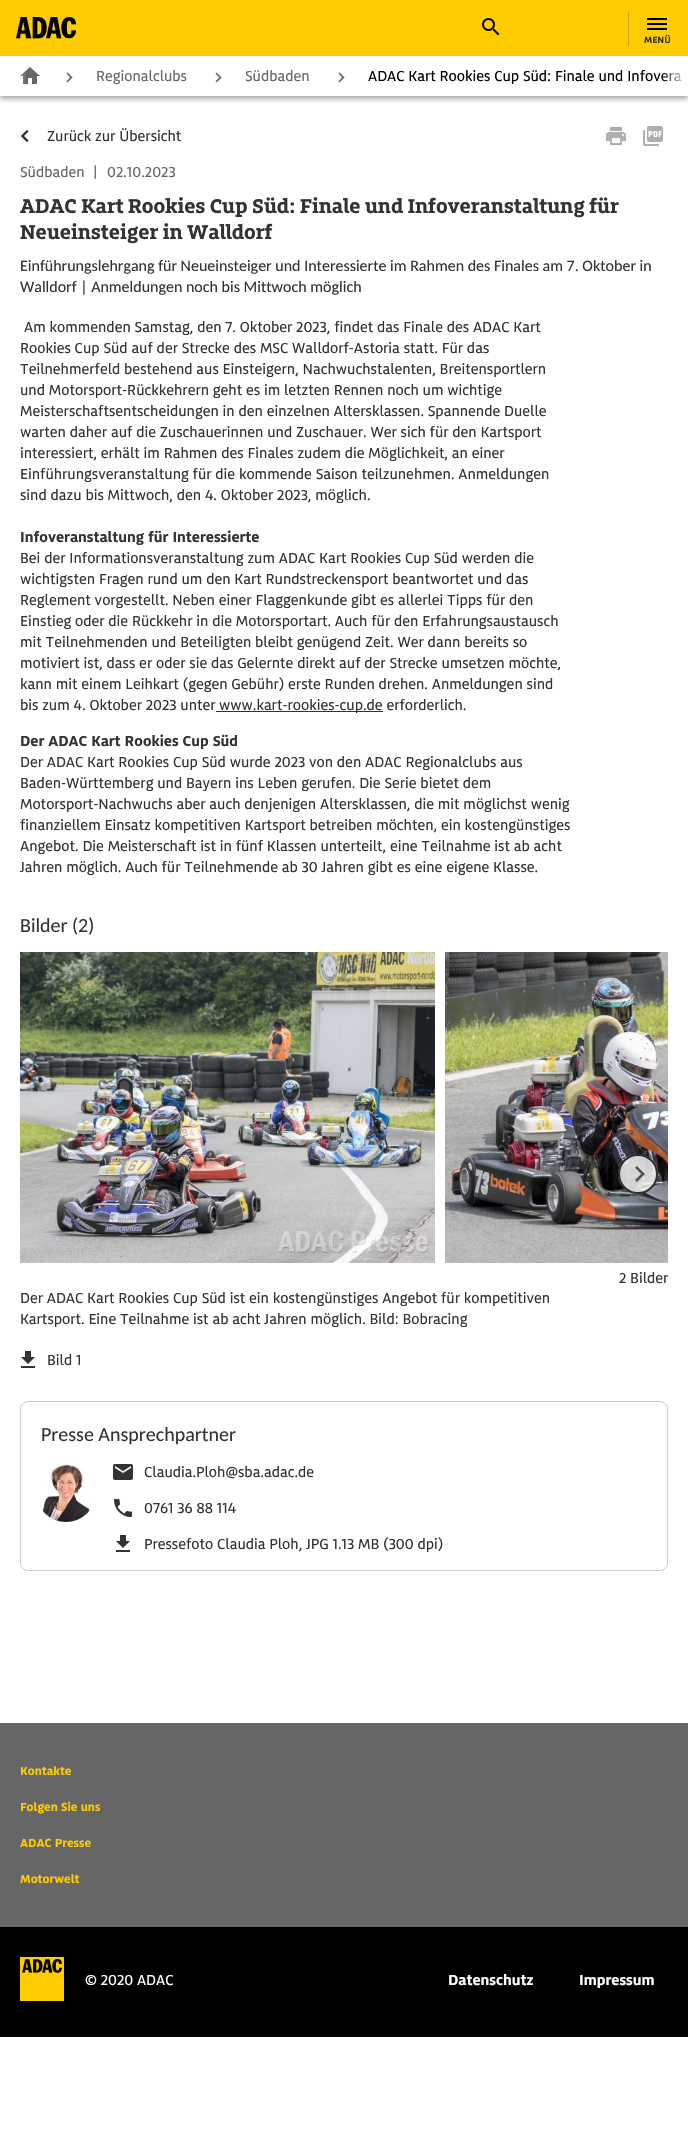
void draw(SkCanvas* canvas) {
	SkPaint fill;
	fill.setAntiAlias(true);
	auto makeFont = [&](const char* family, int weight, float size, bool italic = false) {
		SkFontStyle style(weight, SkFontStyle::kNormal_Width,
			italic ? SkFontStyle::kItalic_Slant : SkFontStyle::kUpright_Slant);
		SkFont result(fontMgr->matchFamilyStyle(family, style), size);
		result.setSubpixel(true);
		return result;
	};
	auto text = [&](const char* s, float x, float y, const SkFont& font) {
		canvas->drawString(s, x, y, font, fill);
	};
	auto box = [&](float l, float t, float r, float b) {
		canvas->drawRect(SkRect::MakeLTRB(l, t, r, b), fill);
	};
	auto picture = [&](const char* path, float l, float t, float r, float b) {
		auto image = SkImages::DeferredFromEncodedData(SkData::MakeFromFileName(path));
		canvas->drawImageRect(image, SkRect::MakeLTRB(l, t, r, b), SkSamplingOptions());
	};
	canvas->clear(0xFFFFFFFF);
	canvas->save();
	canvas->clipRect(SkRect::MakeLTRB(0, 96, 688, 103));
	fill.setColor(0x24000000);
	fill.setMaskFilter(SkMaskFilter::MakeBlur(kNormal_SkBlurStyle, 2.5f));
	canvas->drawRect(SkRect::MakeLTRB(0, 60, 688, 100), fill);
	fill.setMaskFilter(nullptr);
	canvas->restore();
	canvas->save();
	canvas->clipRect(SkRect::MakeLTRB(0, 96, 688, 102));
	fill.setColor(0x1F000000);
	fill.setMaskFilter(SkMaskFilter::MakeBlur(kNormal_SkBlurStyle, 5));
	canvas->drawRect(SkRect::MakeLTRB(0, 57, 688, 97), fill);
	fill.setMaskFilter(nullptr);
	canvas->restore();
	canvas->save();
	canvas->clipRect(SkRect::MakeLTRB(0, 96, 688, 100));
	fill.setColor(0x33000000);
	fill.setMaskFilter(SkMaskFilter::MakeBlur(kNormal_SkBlurStyle, 2));
	canvas->drawRect(SkRect::MakeLTRB(1, 59, 687, 97), fill);
	fill.setMaskFilter(nullptr);
	canvas->restore();
	fill.setColor(0xFFFFCC00);
	box(0, 0, 688, 56);
	picture("image0.png", 16, 17, 76, 39);
	picture("image1.png", 482, 18, 500, 36);
	fill.setColor(0xFFCCA300);
	box(628, 12, 629, 46);
	fill.setColor(0xFF000000);
	box(647, 18, 667, 20);
	box(647, 23, 667, 25);
	box(647, 28, 667, 30);
	picture("image2.png", 20, 67, 40, 84);
	{
		const SkColor colors[] = {0xFFFFFFFF, 0x00FFFFFF};
		const float stops[] = {0, 1};
		const SkPoint ends[] = {{0, 71}, {27, 71}};
		fill.setShader(SkGradientShader::MakeLinear(ends, colors, stops, 2, SkTileMode::kClamp));
		fill.setAlpha(255);
	}
	box(20, 71, 26, 84);
	picture("image3.png", 66, 72, 73, 83);
	picture("image3.png", 215, 72, 222, 83);
	picture("image3.png", 338, 72, 345, 83);
	picture("image4.png", 21, 130, 29, 142);
	picture("image5.png", 606, 127, 626, 145);
	picture("image6.png", 643, 126, 663, 146);
	fill.setShader(nullptr);
	fill.setColor(0xFF333333);
	box(216, 711, 383, 712);
	picture("image7.png", 20, 952, 435, 1263);
	picture("image8.png", 445, 952, 668, 1263);
	fill.setColor(0xCCFFFFFF);
	canvas->drawCircle(638, 1174, 20, fill);
	fill.setStyle(SkPaint::kStroke_Style);
	fill.setStrokeWidth(2);
	fill.setColor(0xCC000000);
	canvas->drawCircle(638, 1174, 19, fill);
	picture("image9.png", 635, 1166, 645, 1182);
	picture("image10.png", 21, 1351, 35, 1368);
	fill.setStrokeWidth(1);
	fill.setColor(0xFFCCCCCC);
	canvas->drawRoundRect(SkRect::MakeLTRB(20.5f, 1401.5f, 667.5f, 1570.5f), 7.5f, 7.5f, fill);
	picture("image11.png", 42, 1464, 90, 1522);
	picture("image12.png", 113, 1464, 133, 1480);
	picture("image13.png", 114, 1499, 132, 1517);
	picture("image10.png", 116, 1535, 130, 1552);
	fill.setStyle(SkPaint::kFill_Style);
	fill.setColor(0xFF666666);
	box(0, 1723, 688, 1927);
	fill.setColor(0xFF000000);
	box(0, 1927, 688, 2037);
	picture("image14.png", 20, 1957, 64, 2001);
	auto font1 = makeFont("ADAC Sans", 700, 10);
	fill.setColor(0xFF333333);
	text("MENÜ", 644, 43, font1);
	auto font2 = makeFont("ADAC Sans", 400, 16);
	fill.setColor(0xFF666666);
	text("Regionalclubs", 96, 81, font2);
	text("Südbaden", 245, 81, font2);
	fill.setColor(0xFF000000);
	text("ADAC Kart Rookies Cup Süd: Finale und Infovera", 368, 81, font2);
	{
		const SkColor colors[] = {0xFFFFFFFF, 0x00FFFFFF};
		const float stops[] = {0, 1};
		const SkPoint ends[] = {{688, 71}, {661, 71}};
		fill.setShader(SkGradientShader::MakeLinear(ends, colors, stops, 2, SkTileMode::kClamp));
		fill.setAlpha(255);
	}
	box(662, 73, 681, 82);
	fill.setShader(nullptr);
	fill.setColor(0xFF333333);
	text("Zurück zur Übersicht", 47, 141, font2);
	fill.setColor(0xFF666666);
	text("Südbaden", 20, 177, font2);
	text("|", 93, 177, font2);
	text("02.10.2023", 107, 177, font2);
	auto font3 = makeFont("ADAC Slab", 700, 22);
	fill.setColor(0xFF333333);
	text("ADAC Kart Rookies Cup Süd: Finale und Infoveranstaltung für", 20, 213, font3);
	text("Neueinsteiger in Walldorf", 20, 239, font3);
	auto font4 = makeFont("Carlito", 400, 16);
	text("Einführungslehrgang für Neueinsteiger und Interessierte im Rahmen des Finales am 7. Oktober in", 20, 271, font4);
	text("Walldorf | Anmeldungen noch bis Mittwoch möglich", 20, 292, font4);
	text("Am kommenden Samstag, den 7. Oktober 2023, findet das Finale des ADAC Kart", 24, 332, font2);
	text("Rookies Cup Süd auf der Strecke des MSC Walldorf-Astoria statt. Für das", 20, 353, font2);
	text("Teilnehmerfeld bestehend aus Einsteigern, Nachwuchstalenten, Breitensportlern", 20, 374, font2);
	text("und Motorsport-Rückkehrern geht es im letzten Rennen noch um wichtige", 20, 395, font2);
	text("Meisterschaftsentscheidungen in den einzelnen Altersklassen. Spannende Duelle", 20, 416, font2);
	text("warten daher auf die Zuschauerinnen und Zuschauer. Wer sich für den Kartsport", 20, 437, font2);
	text("interessiert, erhält im Rahmen des Finales zudem die Möglichkeit, an einer", 20, 458, font2);
	text("Einführungsveranstaltung für die kommende Saison teilzunehmen. Anmeldungen", 20, 479, font2);
	text("sind dazu bis Mittwoch, den 4. Oktober 2023, möglich.", 20, 500, font2);
	auto font5 = makeFont("ADAC Sans", 700, 16);
	text("Infoveranstaltung für Interessierte", 20, 542, font5);
	text("Bei der Informationsveranstaltung zum ADAC Kart Rookies Cup Süd werden die", 20, 563, font2);
	text("wichtigsten Fragen rund um den Kart Rundstreckensport beantwortet und das", 20, 584, font2);
	text("Reglement vorgestellt. Neben einer Flaggenkunde gibt es allerlei Tipps für den", 20, 605, font2);
	text("Einstieg oder die Rückkehr in die Motorsportart. Auch für den Erfahrungsaustausch", 20, 626, font2);
	text("mit Teilnehmenden und Beteiligten bleibt genügend Zeit. Wer dann bereits so", 20, 647, font2);
	text("motiviert ist, dass er oder sie das Gelernte direkt auf der Strecke umsetzen möchte,", 20, 668, font2);
	text("kann mit einem Leihkart (gegen Gebühr) erste Runden drehen. Anmeldungen sind", 20, 689, font2);
	text("bis zum 4. Oktober 2023 unter", 20, 710, font2);
	text("www.kart-rookies-cup.de erforderlich.", 219, 710, font2);
	text("Der ADAC Kart Rookies Cup Süd", 20, 746, font5);
	text("Der ADAC Kart Rookies Cup Süd wurde 2023 von den ADAC Regionalclubs aus", 20, 767, font2);
	text("Baden-Württemberg und Bayern ins Leben gerufen. Die Serie bietet dem", 20, 788, font2);
	text("Motorsport-Nachwuchs aber auch denjenigen Altersklassen, die mit möglichst wenig", 20, 809, font2);
	text("finanziellem Einsatz kompetitiven Kartsport betreiben möchten, ein kostengünstiges", 20, 830, font2);
	text("Angebot. Die Meisterschaft ist in fünf Klassen unterteilt, eine Teilnahme ist ab acht", 20, 851, font2);
	text("Jahren möglich. Auch für Teilnehmende ab 30 Jahren gibt es eine eigene Klasse.", 20, 872, font2);
	auto font6 = makeFont("Carlito", 400, 20);
	text("Bilder (2)", 20, 932, font6);
	text("2 Bilder", 619, 1283, font2);
	text("Der ADAC Kart Rookies Cup Süd ist ein kostengünstiges Angebot für kompetitiven", 20, 1303, font2);
	text("Kartsport. Eine Teilnahme ist ab acht Jahren möglich. Bild: Bobracing", 20, 1324, font2);
	text("Bild 1", 47, 1365, font2);
	text("Presse Ansprechpartner", 41, 1441, font6);
	text("Claudia.Ploh@sba.adac.de", 144, 1477, font2);
	text("0761 36 88 114", 144, 1513, font2);
	text("Pressefoto Claudia Ploh, JPG 1.13 MB (300 dpi)", 144, 1549, font2);
	auto font7 = makeFont("ADAC Sans", 700, 13);
	fill.setColor(0xFFFFCC00);
	text("Kontakte", 20, 1775, font7);
	text("Folgen Sie uns", 20, 1811, font7);
	text("ADAC Presse", 20, 1847, font7);
	text("Motorwelt", 20, 1883, font7);
	fill.setColor(0xFFFFFFFF);
	text("© 2020 ADAC", 85, 1985, font2);
	text("Datenschutz", 448, 1985, font5);
	text("Impressum", 579, 1985, font5);
}
